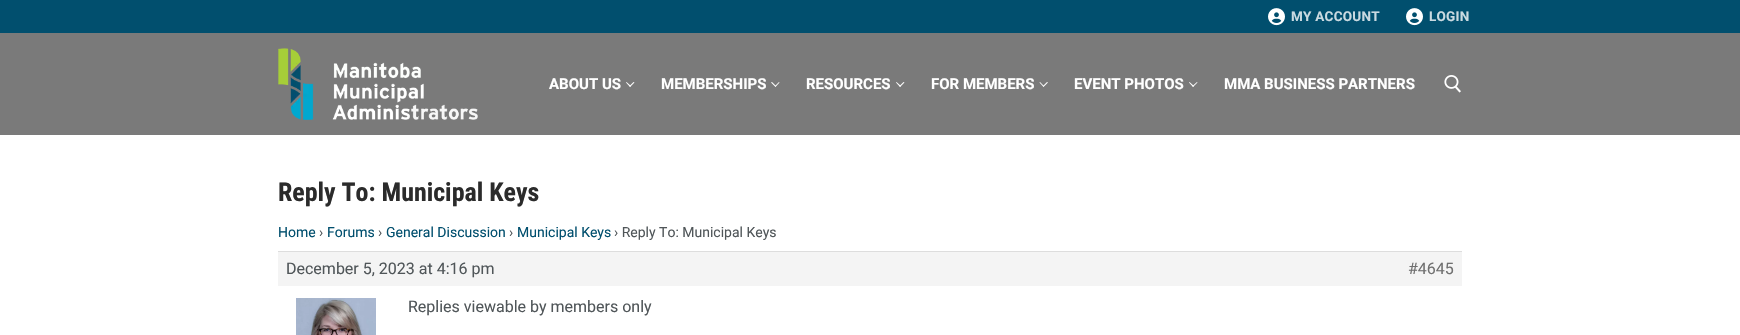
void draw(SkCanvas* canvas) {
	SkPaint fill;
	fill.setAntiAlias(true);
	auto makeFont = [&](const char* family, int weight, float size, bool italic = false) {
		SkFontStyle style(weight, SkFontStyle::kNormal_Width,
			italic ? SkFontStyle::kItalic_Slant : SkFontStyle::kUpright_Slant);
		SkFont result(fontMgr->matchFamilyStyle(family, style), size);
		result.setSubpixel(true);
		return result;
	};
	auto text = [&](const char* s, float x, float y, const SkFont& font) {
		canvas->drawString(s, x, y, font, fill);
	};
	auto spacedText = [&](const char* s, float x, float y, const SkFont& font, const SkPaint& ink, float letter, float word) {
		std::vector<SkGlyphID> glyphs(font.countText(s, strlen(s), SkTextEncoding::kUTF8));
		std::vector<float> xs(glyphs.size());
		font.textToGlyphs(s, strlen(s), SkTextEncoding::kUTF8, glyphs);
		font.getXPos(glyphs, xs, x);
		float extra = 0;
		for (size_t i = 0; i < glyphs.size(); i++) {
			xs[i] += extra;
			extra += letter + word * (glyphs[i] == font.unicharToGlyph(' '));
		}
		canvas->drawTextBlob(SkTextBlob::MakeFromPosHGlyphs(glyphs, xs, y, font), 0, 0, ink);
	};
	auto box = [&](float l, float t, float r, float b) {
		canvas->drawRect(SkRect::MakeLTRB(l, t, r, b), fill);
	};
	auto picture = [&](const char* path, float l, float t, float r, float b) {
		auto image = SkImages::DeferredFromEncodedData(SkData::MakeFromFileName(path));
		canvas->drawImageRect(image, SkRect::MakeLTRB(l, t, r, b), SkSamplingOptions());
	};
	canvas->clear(0xFFFFFFFF);
	fill.setColor(0xFF014F6E);
	box(0, 0, 1740, 33);
	picture("image0.png", 1268, 8, 1285, 26);
	picture("image0.png", 1406, 8, 1423, 26);
	fill.setColor(0xFF7A7A7A);
	box(0, 33, 1740, 135);
	picture("image1.png", 278, 48, 478, 120);
	fill.setColor(0xFFFFFFFF);
	canvas->drawPath(SkPathBuilder().moveTo(630, 87).lineTo(626, 82.5f).lineTo(626.5f, 82).lineTo(631, 86).close().detach(), fill);
	canvas->drawPath(SkPathBuilder().moveTo(630, 87).lineTo(629.5f, 86).lineTo(633.5f, 82).lineTo(634.5f, 82.5f).close().detach(), fill);
	canvas->drawPath(SkPathBuilder().moveTo(775.5f, 87).lineTo(771, 82.5f).lineTo(772, 82).lineTo(776, 86).close().detach(), fill);
	canvas->drawPath(SkPathBuilder().moveTo(775.5f, 87).lineTo(775, 86).lineTo(779, 82).lineTo(779.5f, 82.5f).close().detach(), fill);
	canvas->drawPath(SkPathBuilder().moveTo(900, 87).lineTo(896, 82.5f).lineTo(896.5f, 82).lineTo(901, 86).close().detach(), fill);
	canvas->drawPath(SkPathBuilder().moveTo(900, 87).lineTo(899.5f, 86).lineTo(903.5f, 82).lineTo(904.5f, 82.5f).close().detach(), fill);
	canvas->drawPath(SkPathBuilder().moveTo(1043.5f, 87).lineTo(1039.5f, 82.5f).lineTo(1040, 82).lineTo(1044, 86).close().detach(), fill);
	canvas->drawPath(SkPathBuilder().moveTo(1043.5f, 87).lineTo(1043, 86).lineTo(1047, 82).lineTo(1048, 82.5f).close().detach(), fill);
	canvas->drawPath(SkPathBuilder().moveTo(1193, 87).lineTo(1189, 82.5f).lineTo(1189.5f, 82).lineTo(1194, 86).close().detach(), fill);
	canvas->drawPath(SkPathBuilder().moveTo(1193, 87).lineTo(1192.5f, 86).lineTo(1197, 82).lineTo(1197.5f, 82.5f).close().detach(), fill);
	picture("image2.png", 1444, 75, 1461, 93);
	fill.setColor(0xFFF4F4F4);
	box(278, 252, 1462, 286);
	fill.setColor(0xFFDDDDDD);
	box(278, 251, 1462, 252);
	picture("image3.png", 296, 298, 376, 335);
	auto font1 = makeFont("Roboto", 700, 13.5f);
	fill.setColor(0xFFCADAE1);
	spacedText("MY ACCOUNT", 1291, 21, font1, fill, 0.25f, 0);
	spacedText("LOGIN", 1429, 21, font1, fill, 0.25f, 0);
	auto font2 = makeFont("Roboto", 700, 15);
	fill.setColor(0xFFFFFFFF);
	text("ABOUT US", 549, 89, font2);
	text("MEMBERSHIPS", 661, 89, font2);
	text("RESOURCES", 806, 89, font2);
	text("FOR MEMBERS", 931, 89, font2);
	text("EVENT PHOTOS", 1074, 89, font2);
	text("MMA BUSINESS PARTNERS", 1224, 89, font2);
	auto font3 = makeFont("Roboto Condensed", 700, 25.9f);
	fill.setColor(0xFF2B2B2B);
	text("Reply To: Municipal Keys", 278, 201, font3);
	auto font4 = makeFont("Roboto", 400, 14);
	fill.setColor(0xFF014F6E);
	text("Home", 278, 237, font4);
	fill.setColor(0xFF505659);
	text("›", 319, 237, font4);
	fill.setColor(0xFF014F6E);
	text("Forums", 327, 237, font4);
	fill.setColor(0xFF505659);
	text("›", 378, 237, font4);
	fill.setColor(0xFF014F6E);
	text("General Discussion", 386, 237, font4);
	fill.setColor(0xFF505659);
	text("›", 509, 237, font4);
	fill.setColor(0xFF014F6E);
	text("Municipal Keys", 517, 237, font4);
	fill.setColor(0xFF505659);
	text("› Reply To: Municipal Keys", 614, 237, font4);
	auto font5 = makeFont("Roboto", 400, 16);
	text("December 5, 2023 at 4:16 pm", 286, 274, font5);
	fill.setColor(0xFF707070);
	text("#4645", 1408, 274, font5);
	fill.setColor(0xFF505659);
	text("Replies viewable by members only", 408, 312, font5);
}
